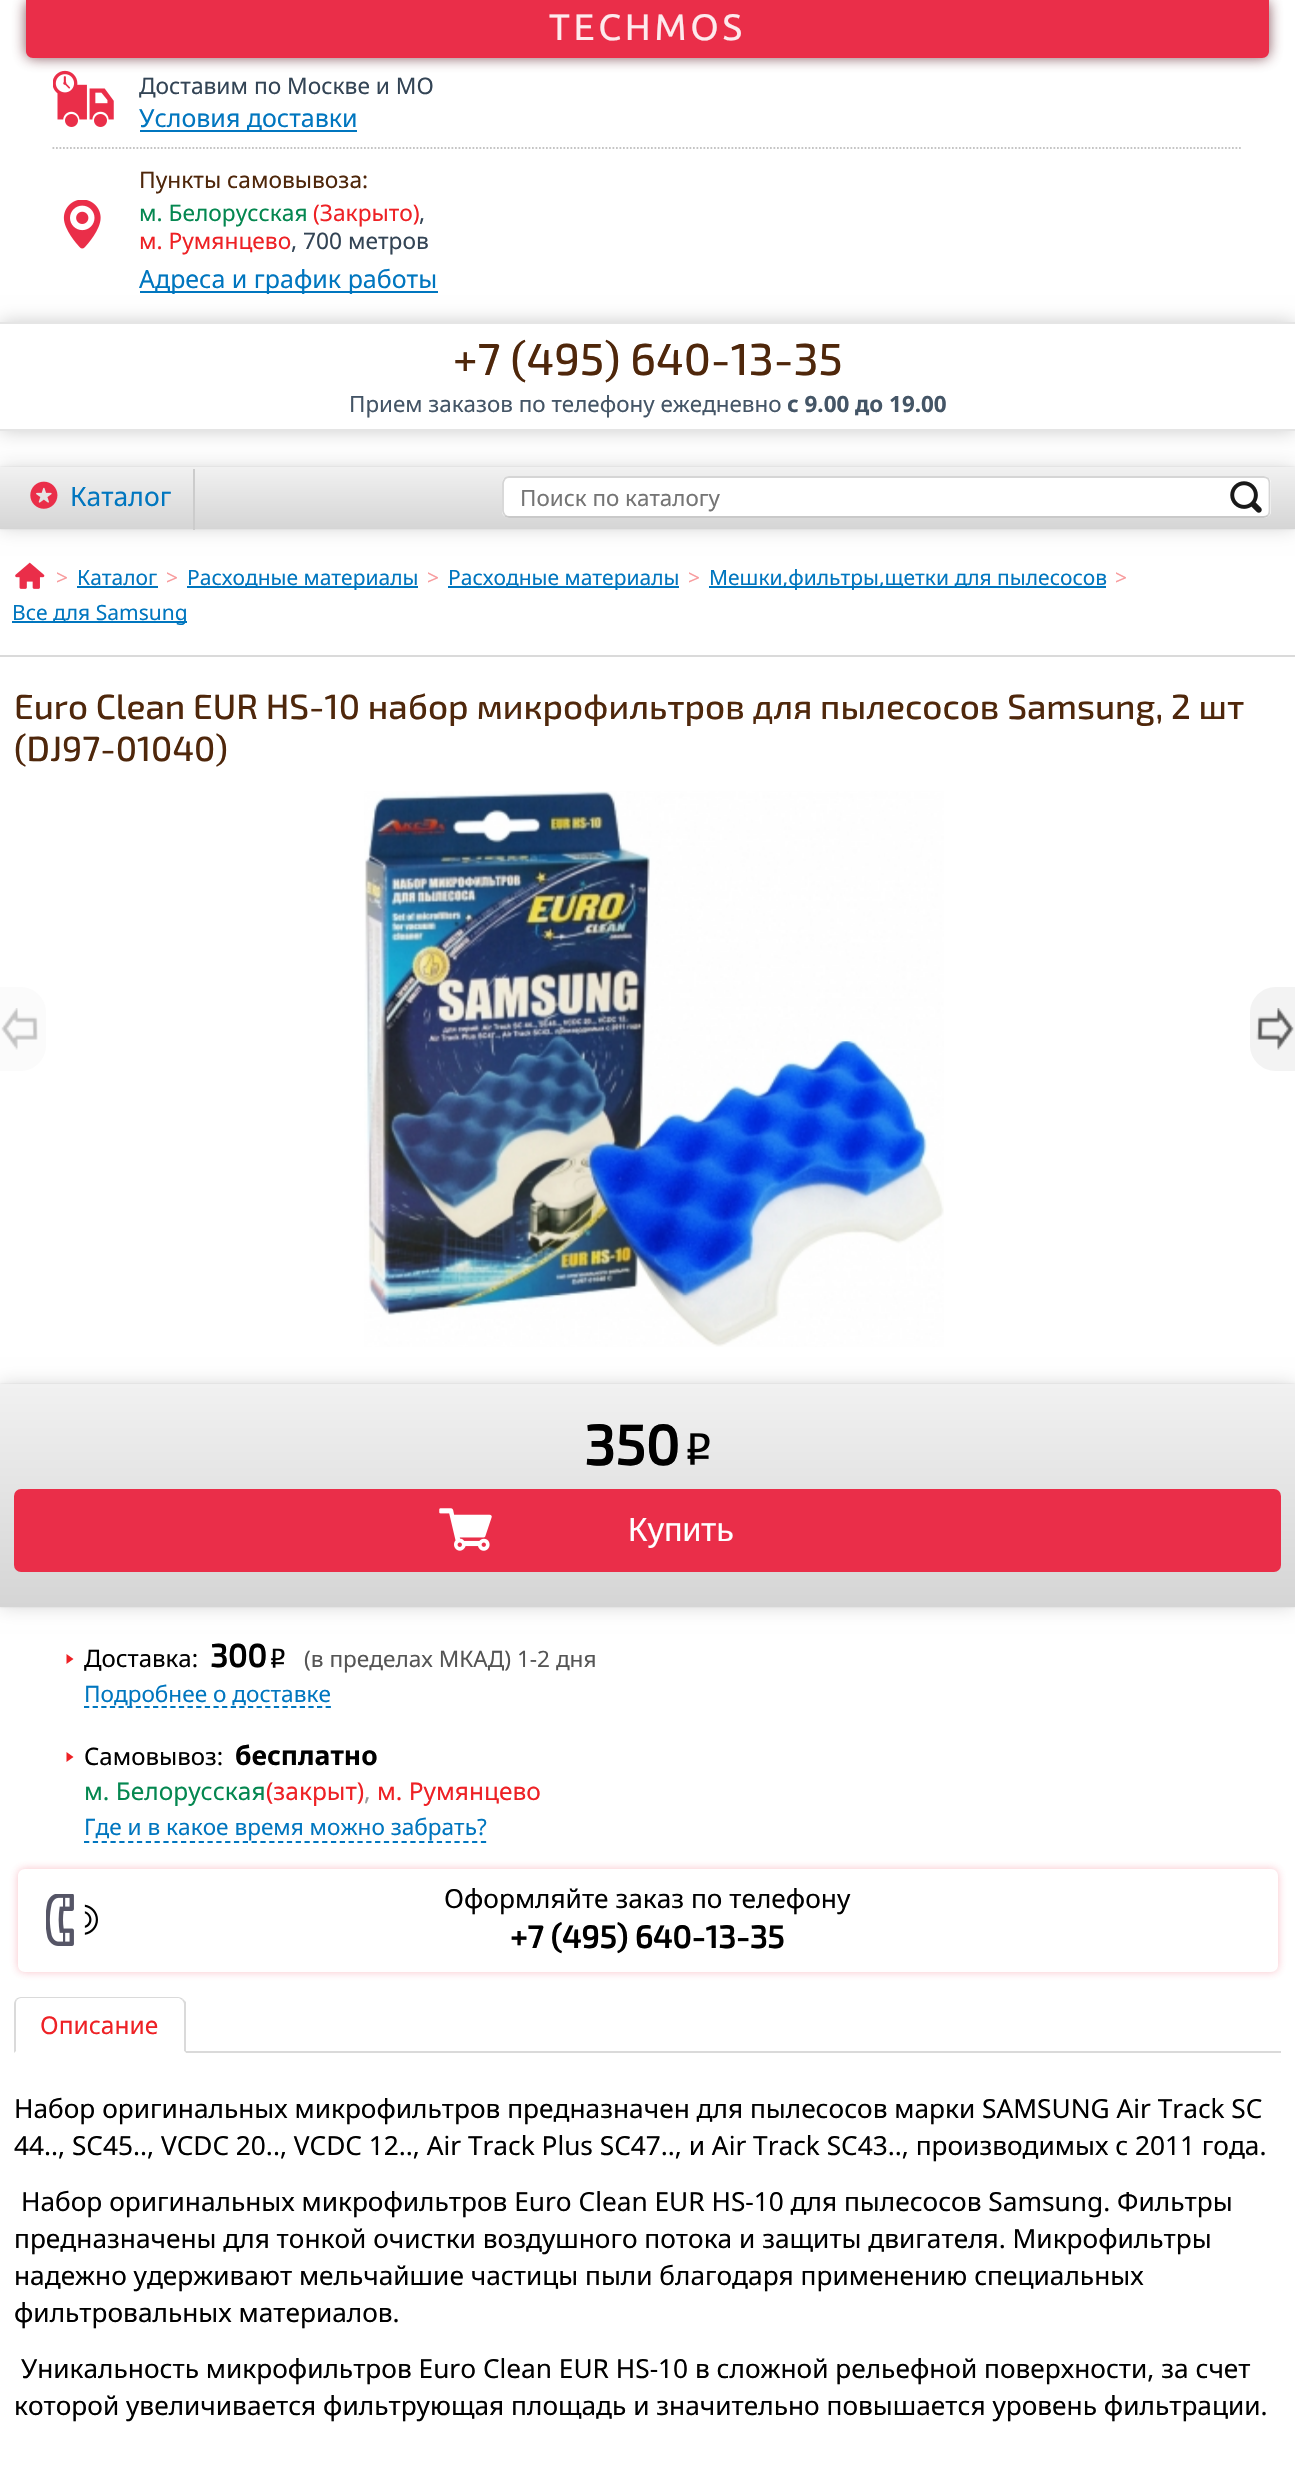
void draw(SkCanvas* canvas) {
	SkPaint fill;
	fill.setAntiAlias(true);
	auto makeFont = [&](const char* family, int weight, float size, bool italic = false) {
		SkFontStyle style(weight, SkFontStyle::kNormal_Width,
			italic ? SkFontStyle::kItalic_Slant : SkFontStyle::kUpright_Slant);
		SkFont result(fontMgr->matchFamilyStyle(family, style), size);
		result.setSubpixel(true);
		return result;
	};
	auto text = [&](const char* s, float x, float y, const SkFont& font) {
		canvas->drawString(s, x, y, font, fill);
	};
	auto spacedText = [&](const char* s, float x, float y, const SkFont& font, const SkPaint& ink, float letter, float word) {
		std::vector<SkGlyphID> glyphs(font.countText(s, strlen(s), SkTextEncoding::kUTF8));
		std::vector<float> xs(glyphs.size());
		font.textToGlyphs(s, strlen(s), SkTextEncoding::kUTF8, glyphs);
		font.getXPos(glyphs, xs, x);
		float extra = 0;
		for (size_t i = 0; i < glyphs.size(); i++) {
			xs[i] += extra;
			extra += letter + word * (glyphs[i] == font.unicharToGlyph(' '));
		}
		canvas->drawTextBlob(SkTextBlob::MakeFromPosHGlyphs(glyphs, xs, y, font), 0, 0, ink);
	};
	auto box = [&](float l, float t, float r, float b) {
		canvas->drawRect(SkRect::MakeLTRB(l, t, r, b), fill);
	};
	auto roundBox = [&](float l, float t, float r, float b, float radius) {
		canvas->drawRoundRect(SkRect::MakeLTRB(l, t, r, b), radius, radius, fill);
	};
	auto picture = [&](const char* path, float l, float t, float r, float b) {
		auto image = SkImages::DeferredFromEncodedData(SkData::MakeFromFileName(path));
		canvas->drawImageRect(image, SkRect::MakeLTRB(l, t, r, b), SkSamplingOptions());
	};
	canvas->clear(0xFFFFFFFF);
	fill.setColor(0xCC662932);
	fill.setMaskFilter(SkMaskFilter::MakeBlur(kNormal_SkBlurStyle, 7));
	canvas->drawRoundRect(SkRect::MakeLTRB(26, 0, 1269, 58), 7, 7, fill);
	fill.setMaskFilter(nullptr);
	fill.setColor(0xFFEA2E49);
	canvas->drawPath(SkPathBuilder().moveTo(26, 0).lineTo(1269, 0).lineTo(1269, 51).cubicTo(1269, 55, 1266, 58, 1262, 58).lineTo(33, 58).cubicTo(29, 58, 26, 55, 26, 51).close().detach(), fill);
	fill.setStyle(SkPaint::kStroke_Style);
	fill.setStrokeWidth(1.8f);
	fill.setColor(0xFFC5C5C5);
	fill.setPathEffect(SkDashPathEffect::Make({{1.75f, 1.75f}}, 0));
	canvas->drawPath(SkPathBuilder().moveTo(52.5f, 148).lineTo(1242.5f, 148).detach(), fill);
	fill.setPathEffect(nullptr);
	picture("image0.png", 53, 70, 114, 127);
	fill.setStyle(SkPaint::kFill_Style);
	fill.setColor(0xFF0076BF);
	box(140, 130, 357, 132);
	picture("image1.png", 63, 200, 101, 249);
	box(140, 291, 438, 293);
	canvas->save();
	canvas->clipPath(SkPathBuilder(SkPathFillType::kEvenOdd).moveTo(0, 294).lineTo(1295, 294).lineTo(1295, 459).lineTo(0, 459).close().moveTo(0, 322).lineTo(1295, 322).lineTo(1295, 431).lineTo(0, 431).close().detach(), true);
	fill.setColor(0x33000000);
	fill.setMaskFilter(SkMaskFilter::MakeBlur(kNormal_SkBlurStyle, 9));
	canvas->drawRect(SkRect::MakeLTRB(0, 322, 1295, 431), fill);
	fill.setMaskFilter(nullptr);
	canvas->restore();
	fill.setColor(0xFFE5E5E5);
	box(0, 322, 1295, 324);
	box(0, 429, 1295, 431);
	fill.setColor(0x26000000);
	fill.setMaskFilter(SkMaskFilter::MakeBlur(kNormal_SkBlurStyle, 9));
	canvas->drawRect(SkRect::MakeLTRB(0, 467, 1295, 529), fill);
	fill.setMaskFilter(nullptr);
	fill.setColor(0x1A000000);
	fill.setMaskFilter(SkMaskFilter::MakeBlur(kNormal_SkBlurStyle, 1));
	canvas->drawRect(SkRect::MakeLTRB(0, 467, 1295, 529), fill);
	fill.setMaskFilter(nullptr);
	{
		const SkColor colors[] = {0xFFF1F1F1, 0xFFD5D5D5};
		const float stops[] = {0, 1};
		const SkPoint ends[] = {{648, 467}, {648, 529}};
		fill.setShader(SkGradientShader::MakeLinear(ends, colors, stops, 2, SkTileMode::kClamp));
		fill.setAlpha(255);
	}
	box(0, 467, 1295, 529);
	fill.setShader(nullptr);
	fill.setColor(0xFFCCCCCC);
	box(193, 469, 195, 530);
	picture("image2.png", 30, 481, 58, 509);
	fill.setColor(0xFFFFFFFF);
	roundBox(502, 476, 1271, 518, 7);
	fill.setStyle(SkPaint::kStroke_Style);
	fill.setColor(0xFFC9C9C9);
	canvas->drawPath(SkPathBuilder().moveTo(1268, 515.5f).cubicTo(1266.5f, 516.5f, 1265, 517, 1263.5f, 517).lineTo(509, 517).cubicTo(507.5f, 517, 506, 516.5f, 505, 515.5f).detach(), fill);
	fill.setColor(0xFFD5D5D5);
	canvas->drawPath(SkPathBuilder().moveTo(505, 515.5f).cubicTo(504, 514, 503, 512.5f, 503, 511).lineTo(503, 483).cubicTo(503, 481.5f, 504, 480, 505, 478.5f).cubicTo(506, 477.5f, 507.5f, 477, 509, 477).lineTo(1263.5f, 477).cubicTo(1265, 477, 1266.5f, 477.5f, 1268, 478.5f).cubicTo(1269, 480, 1269.5f, 481.5f, 1269.5f, 483).lineTo(1269.5f, 511).cubicTo(1269.5f, 512.5f, 1269, 514, 1268, 515.5f).detach(), fill);
	picture("image3.png", 1230, 481, 1262, 513);
	picture("image4.png", 15, 562, 45, 589);
	fill.setStyle(SkPaint::kFill_Style);
	fill.setColor(0xFF0076BF);
	box(77, 586, 158, 588);
	box(187, 586, 418, 588);
	box(448, 586, 679, 588);
	box(709, 586, 1106, 588);
	box(12, 621, 187, 623);
	fill.setColor(0xFFDADADA);
	box(0, 655, 1295, 657);
	fill.setColor(0xFFFBFBFB);
	canvas->drawPath(SkPathBuilder().moveTo(-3, 987).lineTo(20, 987).cubicTo(34.5f, 987, 46, 998.5f, 46, 1013).lineTo(46, 1045).cubicTo(46, 1059.5f, 34.5f, 1071, 20, 1071).lineTo(-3, 1071).close().detach(), fill);
	picture("image5.png", 1, 1008, 38, 1050);
	picture("image6.png", 364, 791, 944, 1347);
	fill.setColor(0xFFF3F3F3);
	canvas->drawPath(SkPathBuilder().moveTo(1276, 987).lineTo(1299, 987).lineTo(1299, 1071).lineTo(1276, 1071).cubicTo(1261.5f, 1071, 1250, 1059.5f, 1250, 1045).lineTo(1250, 1013).cubicTo(1250, 998.5f, 1261.5f, 987, 1276, 987).close().detach(), fill);
	picture("image7.png", 1256, 1008, 1294, 1050);
	fill.setColor(0x26000000);
	fill.setMaskFilter(SkMaskFilter::MakeBlur(kNormal_SkBlurStyle, 9));
	canvas->drawRect(SkRect::MakeLTRB(0, 1384, 1295, 1607), fill);
	fill.setMaskFilter(nullptr);
	fill.setColor(0x1A000000);
	fill.setMaskFilter(SkMaskFilter::MakeBlur(kNormal_SkBlurStyle, 1));
	canvas->drawRect(SkRect::MakeLTRB(0, 1384, 1295, 1607), fill);
	fill.setMaskFilter(nullptr);
	{
		const SkColor colors[] = {0xFFF1F1F1, 0xFFD5D5D5};
		const float stops[] = {0, 1};
		const SkPoint ends[] = {{648, 1384}, {648, 1607}};
		fill.setShader(SkGradientShader::MakeLinear(ends, colors, stops, 2, SkTileMode::kClamp));
		fill.setAlpha(255);
	}
	box(0, 1384, 1295, 1607);
	picture("image8.png", 687, 1433, 710, 1465);
	fill.setShader(nullptr);
	fill.setColor(0xFFEA2E49);
	roundBox(14, 1489, 1281, 1572, 7);
	picture("image9.png", 439, 1508, 492, 1551);
	fill.setColor(0xFFEE2125);
	canvas->drawPath(SkPathBuilder().moveTo(66.5f, 1664).lineTo(66.5f, 1654).lineTo(73.5f, 1659).close().detach(), fill);
	picture("image10.png", 271, 1648, 285, 1668);
	fill.setStyle(SkPaint::kStroke_Style);
	fill.setColor(0xFF0076BF);
	fill.setPathEffect(SkDashPathEffect::Make({{5.25f, 3.38f}}, 0));
	canvas->drawPath(SkPathBuilder().moveTo(84, 1707).lineTo(331, 1707).detach(), fill);
	fill.setPathEffect(nullptr);
	fill.setStyle(SkPaint::kFill_Style);
	fill.setColor(0xFFEE2125);
	canvas->drawPath(SkPathBuilder().moveTo(66.5f, 1762).lineTo(66.5f, 1752).lineTo(73.5f, 1757).close().detach(), fill);
	fill.setStyle(SkPaint::kStroke_Style);
	fill.setColor(0xFF0076BF);
	fill.setPathEffect(SkDashPathEffect::Make({{5.25f, 3.57f}}, 0));
	canvas->drawPath(SkPathBuilder().moveTo(84, 1842).lineTo(486.5f, 1842).detach(), fill);
	fill.setPathEffect(nullptr);
	canvas->save();
	canvas->clipPath(SkPathBuilder(SkPathFillType::kEvenOdd).moveTo(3, 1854).lineTo(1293, 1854).lineTo(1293, 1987).lineTo(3, 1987).close().moveTo(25, 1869).lineTo(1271, 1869).cubicTo(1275, 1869, 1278, 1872, 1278, 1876).lineTo(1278, 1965).cubicTo(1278, 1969, 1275, 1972, 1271, 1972).lineTo(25, 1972).cubicTo(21, 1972, 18, 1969, 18, 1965).lineTo(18, 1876).cubicTo(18, 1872, 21, 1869, 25, 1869).close().detach(), true);
	fill.setStyle(SkPaint::kFill_Style);
	fill.setColor(0x4DEA2E49);
	fill.setMaskFilter(SkMaskFilter::MakeBlur(kNormal_SkBlurStyle, 4.5f));
	canvas->drawRoundRect(SkRect::MakeLTRB(18, 1869, 1278, 1972), 7, 7, fill);
	fill.setMaskFilter(nullptr);
	canvas->restore();
	picture("image11.png", 46, 1894, 98, 1946);
	fill.setColor(0xFFDADADA);
	box(186, 2051, 1281, 2053);
	canvas->drawPath(SkPathBuilder().moveTo(21, 1997).cubicTo(19, 1997, 17, 1998, 16, 1999).lineTo(17, 2000).cubicTo(18, 1999, 19, 1998, 21, 1998).lineTo(179, 1998).lineTo(182, 2000).lineTo(183, 1999).cubicTo(182, 1998, 180, 1997, 178, 1997).close().detach(), fill);
	canvas->drawPath(SkPathBuilder().moveTo(183, 1999).lineTo(186, 2002).lineTo(186, 2053).lineTo(184, 2051).lineTo(184, 2004).cubicTo(184, 2003, 183, 2001, 182, 2000).close().detach(), fill);
	fill.setColor(0xFFFFFFFF);
	canvas->drawPath(SkPathBuilder().moveTo(186, 2053).lineTo(184, 2051).lineTo(16, 2051).lineTo(14, 2053).close().detach(), fill);
	fill.setColor(0xFFDADADA);
	canvas->drawPath(SkPathBuilder().moveTo(14, 2053).lineTo(16, 2051).lineTo(16, 2004).cubicTo(16, 2003, 16, 2001, 17, 2000).lineTo(16, 1999).cubicTo(15, 2000, 14, 2002, 14, 2004).close().detach(), fill);
	auto font1 = makeFont("Ubuntu", 400, 36.75f);
	fill.setColor(0xFFFDEAED);
	spacedText("TECHMOS", 549, 40, font1, fill, 3.75f, 0);
	auto font2 = makeFont("Noto Sans", 400, 22.75f);
	fill.setColor(0xFF334455);
	text("Доставим по Москве и МО", 139, 94, font2);
	auto font3 = makeFont("Noto Sans", 400, 25);
	fill.setColor(0xFF0076BF);
	text("Условия доставки", 139, 127, font3);
	fill.setColor(0xFF4F270B);
	text("Пункты самовывоза:", 139, 188, font2);
	fill.setColor(0xFF048750);
	text("м. Белорусская", 139, 221, font2);
	fill.setColor(0xFFEE2125);
	text("(Закрыто)", 313, 221, font2);
	fill.setColor(0xFF334455);
	text(",", 419, 221, font2);
	fill.setColor(0xFFEE2125);
	text("м. Румянцево", 139, 249, font2);
	fill.setColor(0xFF334455);
	text(", 700 метров", 291, 249, font2);
	fill.setColor(0xFF0076BF);
	text("Адреса и график работы", 139, 288, font3);
	auto font4 = makeFont("Exo 2", 500, 44.75f);
	fill.setColor(0xFF4F270B);
	text("+7 (495) 640-13-35", 453, 375, font4);
	auto font5 = makeFont("Noto Sans", 400, 22.4f);
	fill.setColor(0xFF445566);
	text("Прием заказов по телефону ежедневно", 349, 412, font5);
	auto font6 = makeFont("Noto Sans", 700, 22.4f);
	text("с 9.00 до 19.00", 787, 412, font6);
	auto font7 = makeFont("Noto Sans", 400, 26.5f);
	fill.setColor(0xFF0076BF);
	text("Каталог", 70, 506, font7);
	fill.setColor(0xFF757575);
	text("Поиск по каталогу", 520, 506, font5);
	auto font8 = makeFont("Noto Sans", 400, 21);
	fill.setColor(0xFFF89B9D);
	text(">", 56, 585, font8);
	fill.setColor(0xFF0076BF);
	text("Каталог", 77, 585, font8);
	fill.setColor(0xFFF89B9D);
	text(">", 166, 585, font8);
	fill.setColor(0xFF0076BF);
	text("Расходные материалы", 187, 585, font8);
	fill.setColor(0xFFF89B9D);
	text(">", 427, 585, font8);
	fill.setColor(0xFF0076BF);
	text("Расходные материалы", 448, 585, font8);
	fill.setColor(0xFFF89B9D);
	text(">", 688, 585, font8);
	fill.setColor(0xFF0076BF);
	text("Мешки,фильтры,щетки для пылесосов", 709, 585, font8);
	fill.setColor(0xFFF89B9D);
	text(">", 1115, 585, font8);
	fill.setColor(0xFF0076BF);
	text("Все для Samsung", 12, 620, font8);
	auto font9 = makeFont("Exo 2", 500, 35);
	fill.setColor(0xFF4F270B);
	text("Euro Clean EUR HS-10 набор микрофильтров для пылесосов Samsung, 2 шт", 14, 719, font9);
	text("(DJ97-01040)", 14, 761, font9);
	auto font10 = makeFont("Exo 2", 700, 56);
	fill.setColor(0xFF000000);
	text("350", 584, 1465, font10);
	auto font11 = makeFont("Liberation Sans", 400, 33.5f);
	fill.setColor(0xFFFFFFFF);
	text("Купить", 628, 1541, font11);
	auto font12 = makeFont("Noto Sans", 400, 24);
	fill.setColor(0xFF000000);
	text("Доставка:", 84, 1667, font12);
	auto font13 = makeFont("Exo 2", 700, 32);
	text("300", 210, 1667, font13);
	auto font14 = makeFont("Noto Sans", 400, 22.6f);
	fill.setColor(0xFF555555);
	text("(в пределах МКАД) 1-2 дня", 304, 1667, font14);
	fill.setColor(0xFF0076BF);
	text("Подробнее о доставке", 84, 1702, font14);
	fill.setColor(0xFF000000);
	text("Самовывоз:", 84, 1765, font12);
	auto font15 = makeFont("Noto Sans", 700, 26.5f);
	text("бесплатно", 235, 1765, font15);
	auto font16 = makeFont("Noto Sans", 400, 24.5f);
	fill.setColor(0xFF048750);
	text("м. Белорусская", 84, 1800, font16);
	fill.setColor(0xFFEE2125);
	text("(закрыт)", 266, 1800, font16);
	fill.setColor(0xFF999999);
	text(",", 364, 1800, font16);
	fill.setColor(0xFFEE2125);
	text("м. Румянцево", 377, 1800, font16);
	fill.setColor(0xFF0076BF);
	text("Где и в какое время можно забрать?", 84, 1835, font14);
	auto font17 = makeFont("Noto Sans", 400, 26.25f);
	fill.setColor(0xFF000000);
	text("Оформляйте заказ по телефону", 444, 1908, font17);
	auto font18 = makeFont("Exo 2", 700, 31.5f);
	text("+7 (495) 640-13-35", 510, 1948, font18);
	fill.setColor(0xFFEE2125);
	text("Описание", 40, 2034, font16);
	fill.setColor(0xFF000000);
	text("Набор оригинальных микрофильтров предназначен для пылесосов марки SAMSUNG Air Track SC", 14, 2118, font17);
	text("44.., SC45.., VCDC 20.., VCDC 12.., Air Track Plus SC47.., и Air Track SC43.., производимых с 2011 года.", 14, 2155, font17);
	text("Набор оригинальных микрофильтров Euro Clean EUR HS-10 для пылесосов Samsung. Фильтры", 21, 2211, font17);
	text("предназначены для тонкой очистки воздушного потока и защиты двигателя. Микрофильтры", 14, 2248, font17);
	text("надежно удерживают мельчайшие частицы пыли благодаря применению специальных", 14, 2285, font17);
	text("фильтровальных материалов.", 14, 2322, font17);
	text("Уникальность микрофильтров Euro Clean EUR HS-10 в сложной рельефной поверхности, за счет", 21, 2378, font17);
	text("которой увеличивается фильтрующая площадь и значительно повышается уровень фильтрации.", 14, 2415, font17);
}
